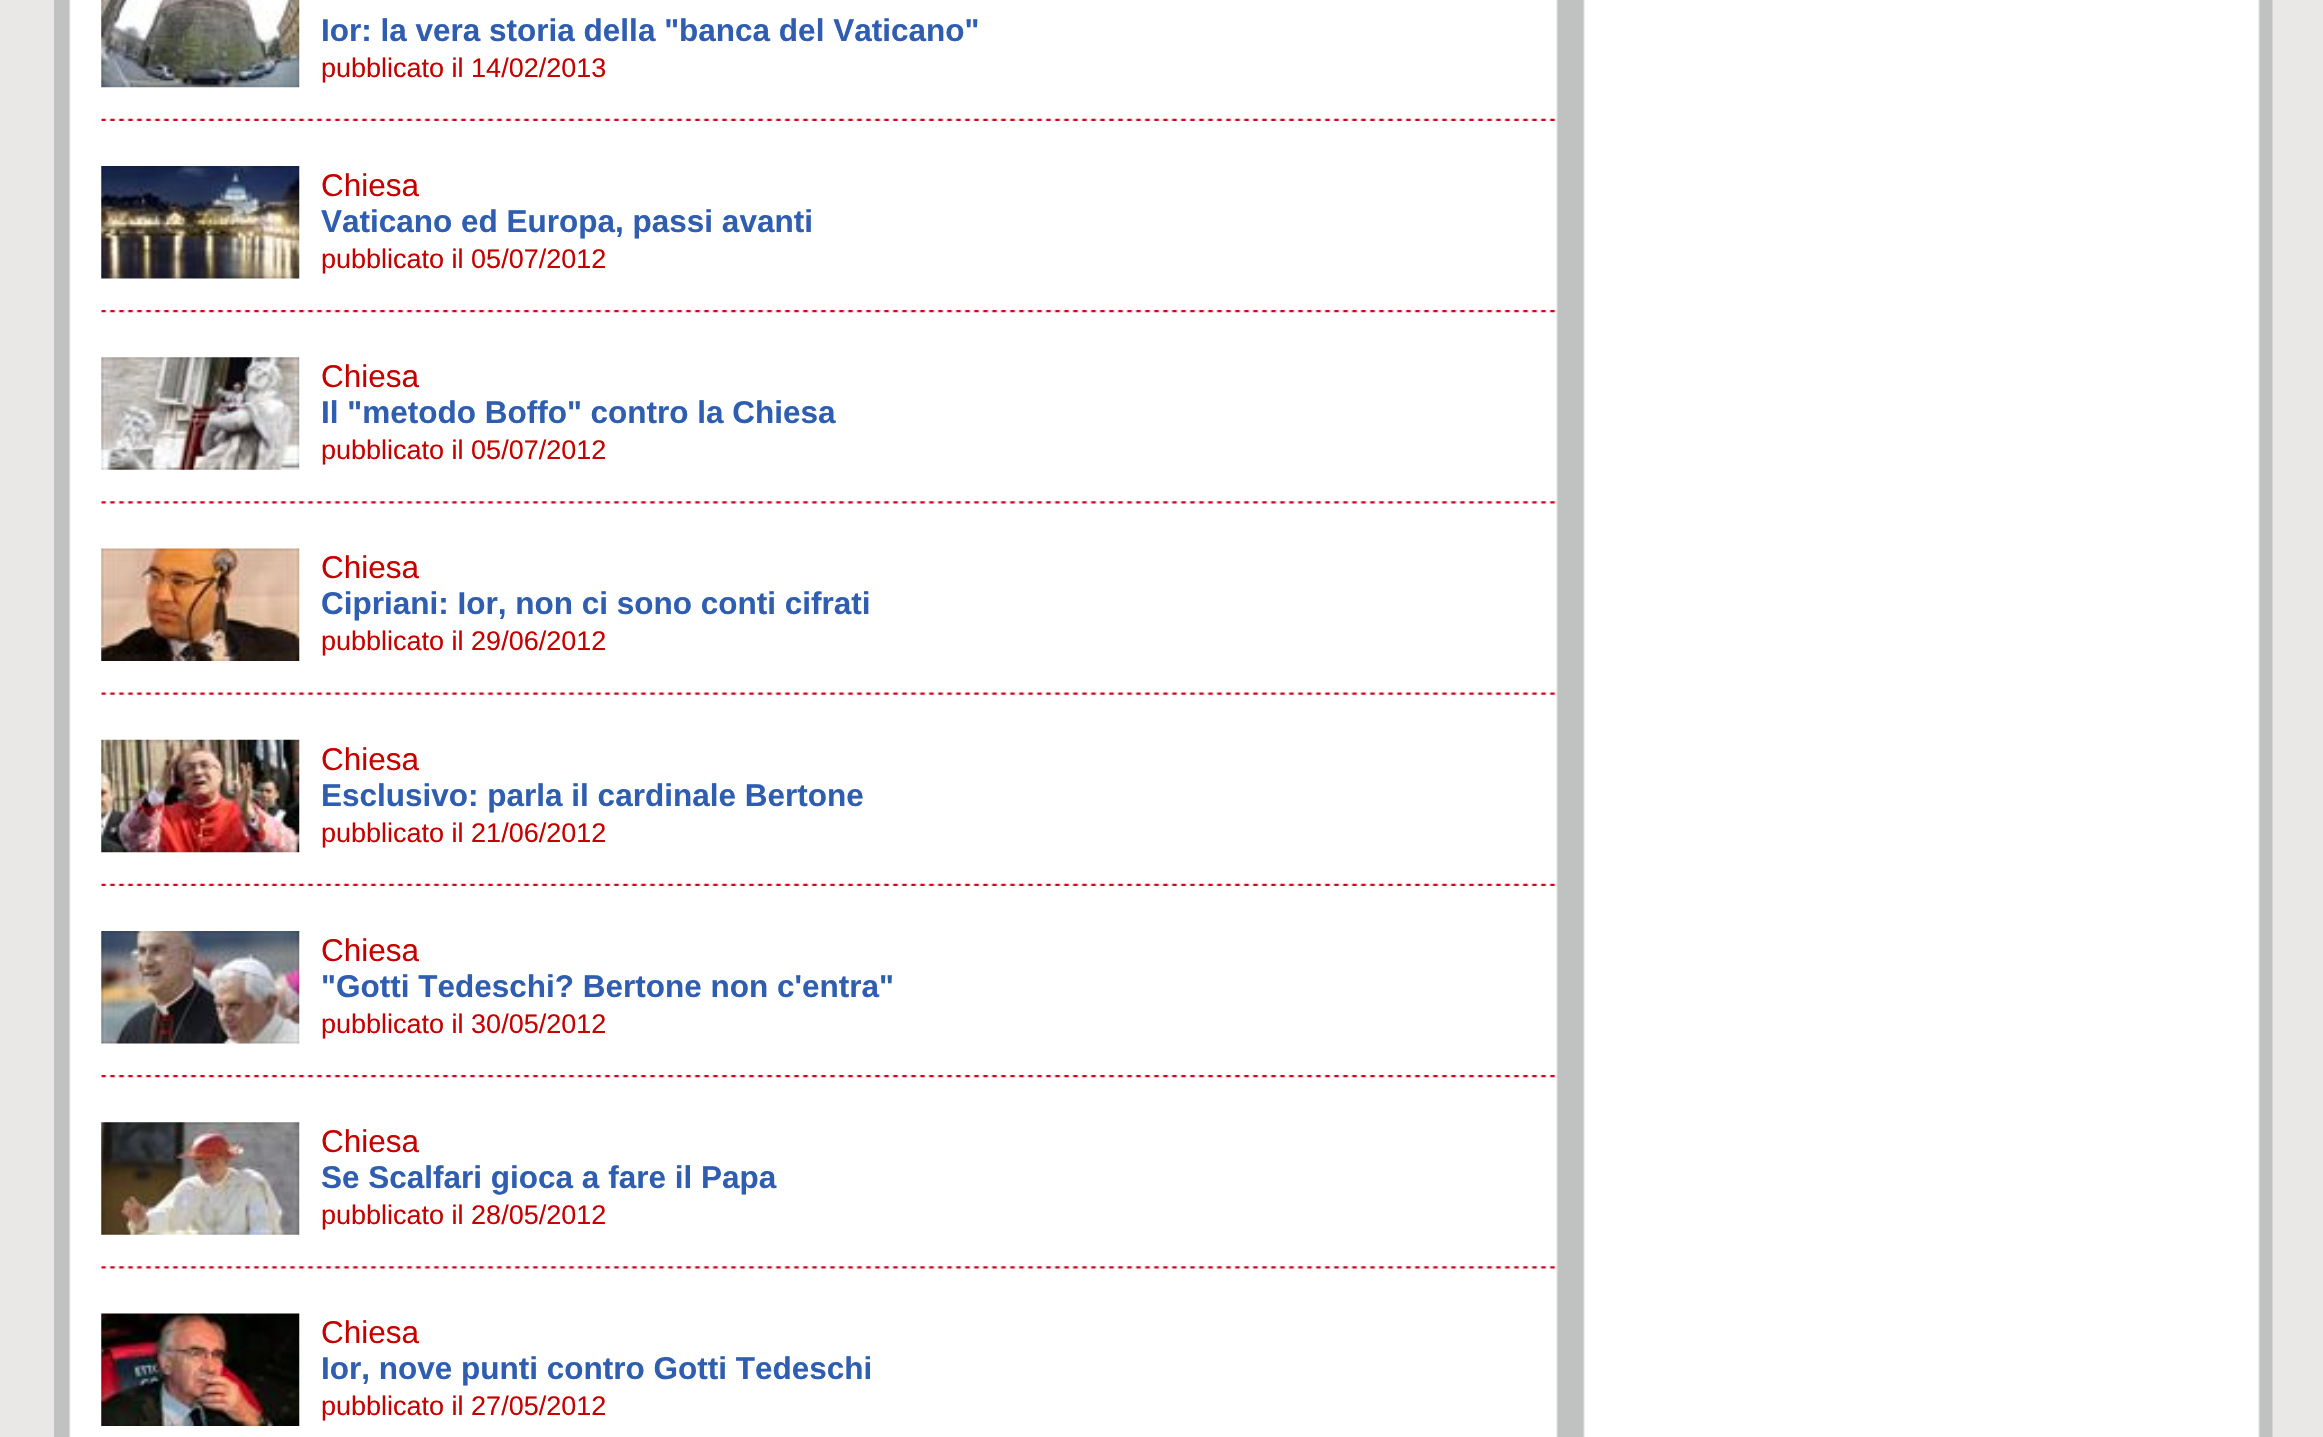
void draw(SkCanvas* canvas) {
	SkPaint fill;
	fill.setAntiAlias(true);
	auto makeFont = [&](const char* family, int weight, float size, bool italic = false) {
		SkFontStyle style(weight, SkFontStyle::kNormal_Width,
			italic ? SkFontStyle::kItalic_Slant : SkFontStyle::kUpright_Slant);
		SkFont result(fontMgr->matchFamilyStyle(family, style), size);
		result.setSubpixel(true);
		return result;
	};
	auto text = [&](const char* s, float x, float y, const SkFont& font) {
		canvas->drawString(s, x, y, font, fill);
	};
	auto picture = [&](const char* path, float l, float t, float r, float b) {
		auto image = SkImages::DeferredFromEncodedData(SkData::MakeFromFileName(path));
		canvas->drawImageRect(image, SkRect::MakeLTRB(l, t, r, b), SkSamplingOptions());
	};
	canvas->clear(0xFFE9E8E7);
	picture("image0.png", 54, 0, 2273, 1437);
	picture("image1.png", 101, 118, 1556, 121);
	picture("image2.png", 101, 0, 300, 88);
	picture("image3.png", 101, 310, 1556, 313);
	picture("image4.png", 101, 166, 300, 279);
	picture("image5.png", 101, 501, 1556, 504);
	picture("image6.png", 101, 357, 300, 470);
	picture("image7.png", 101, 692, 1556, 695);
	picture("image8.png", 101, 548, 300, 661);
	picture("image1.png", 101, 883, 1556, 886);
	picture("image9.png", 101, 739, 300, 853);
	picture("image3.png", 101, 1075, 1556, 1078);
	picture("image10.png", 101, 931, 300, 1044);
	picture("image5.png", 101, 1266, 1556, 1269);
	picture("image11.png", 101, 1122, 300, 1235);
	picture("image12.png", 101, 1313, 300, 1426);
	auto font1 = makeFont("Liberation Sans", 700, 31.5f);
	fill.setColor(0xFF2F5EB1);
	text("Ior: la vera storia della \"banca del Vaticano\"", 321, 41, font1);
	auto font2 = makeFont("Liberation Sans", 400, 27);
	fill.setColor(0xFFC60200);
	text("pubblicato il 14/02/2013", 321, 77, font2);
	auto font3 = makeFont("Liberation Sans", 400, 31.5f);
	text("Chiesa", 321, 196, font3);
	fill.setColor(0xFF2F5EB1);
	text("Vaticano ed Europa, passi avanti", 321, 232, font1);
	fill.setColor(0xFFC60200);
	text("pubblicato il 05/07/2012", 321, 268, font2);
	text("Chiesa", 321, 387, font3);
	fill.setColor(0xFF2F5EB1);
	text("Il \"metodo Boffo\" contro la Chiesa", 321, 423, font1);
	fill.setColor(0xFFC60200);
	text("pubblicato il 05/07/2012", 321, 459, font2);
	text("Chiesa", 321, 578, font3);
	fill.setColor(0xFF2F5EB1);
	text("Cipriani: Ior, non ci sono conti cifrati", 321, 614, font1);
	fill.setColor(0xFFC60200);
	text("pubblicato il 29/06/2012", 321, 650, font2);
	text("Chiesa", 321, 770, font3);
	fill.setColor(0xFF2F5EB1);
	text("Esclusivo: parla il cardinale Bertone", 321, 806, font1);
	fill.setColor(0xFFC60200);
	text("pubblicato il 21/06/2012", 321, 842, font2);
	text("Chiesa", 321, 961, font3);
	fill.setColor(0xFF2F5EB1);
	text("\"Gotti Tedeschi? Bertone non c'entra\"", 321, 997, font1);
	fill.setColor(0xFFC60200);
	text("pubblicato il 30/05/2012", 321, 1033, font2);
	text("Chiesa", 321, 1152, font3);
	fill.setColor(0xFF2F5EB1);
	text("Se Scalfari gioca a fare il Papa", 321, 1188, font1);
	fill.setColor(0xFFC60200);
	text("pubblicato il 28/05/2012", 321, 1224, font2);
	text("Chiesa", 321, 1343, font3);
	fill.setColor(0xFF2F5EB1);
	text("Ior, nove punti contro Gotti Tedeschi", 321, 1379, font1);
	fill.setColor(0xFFC60200);
	text("pubblicato il 27/05/2012", 321, 1415, font2);
}
